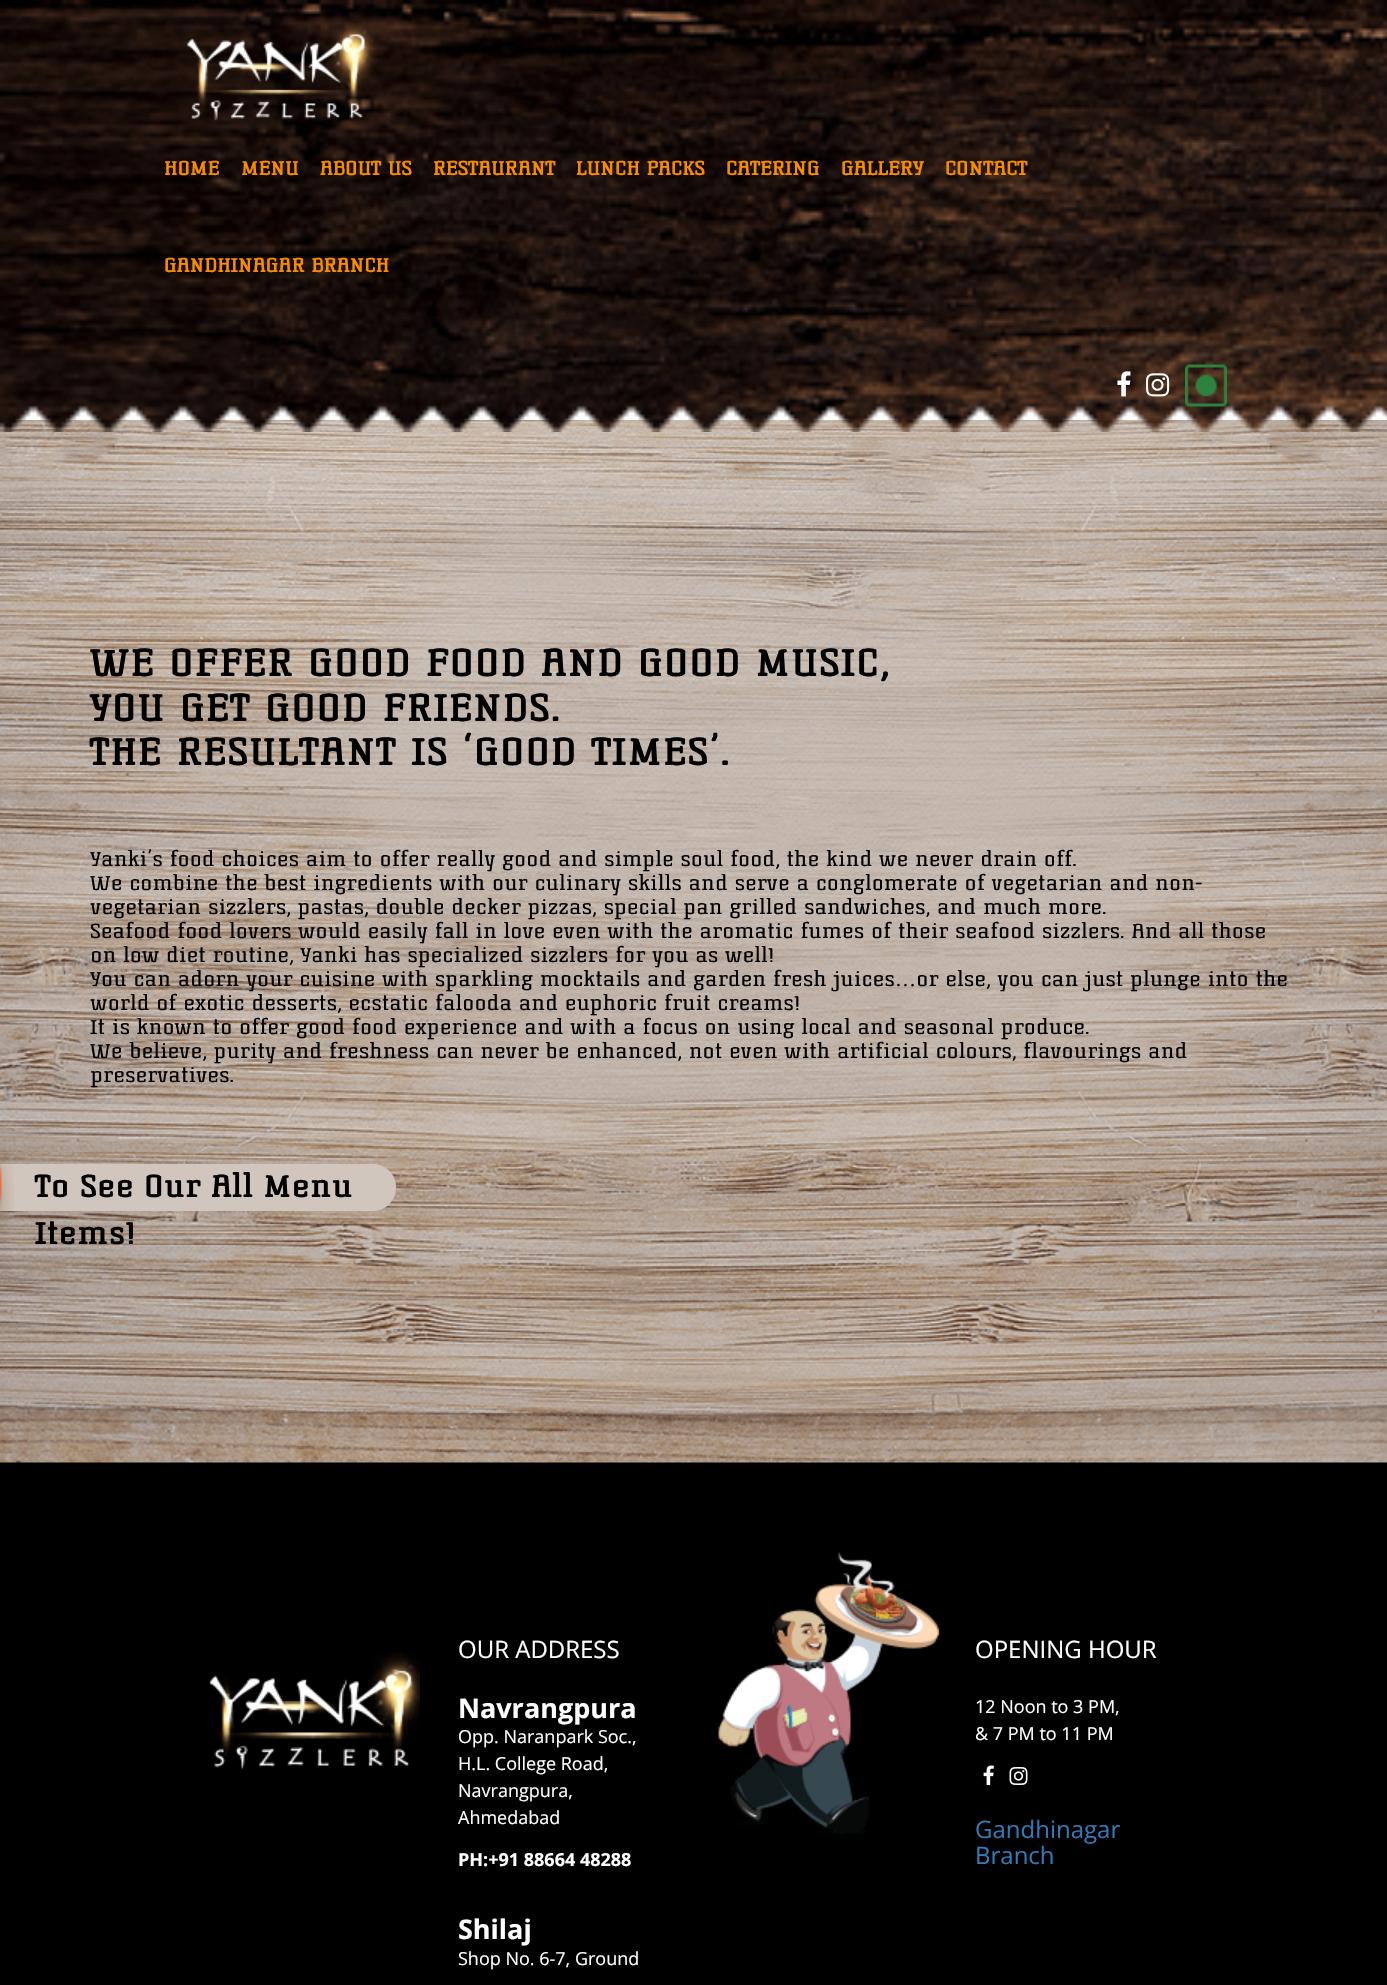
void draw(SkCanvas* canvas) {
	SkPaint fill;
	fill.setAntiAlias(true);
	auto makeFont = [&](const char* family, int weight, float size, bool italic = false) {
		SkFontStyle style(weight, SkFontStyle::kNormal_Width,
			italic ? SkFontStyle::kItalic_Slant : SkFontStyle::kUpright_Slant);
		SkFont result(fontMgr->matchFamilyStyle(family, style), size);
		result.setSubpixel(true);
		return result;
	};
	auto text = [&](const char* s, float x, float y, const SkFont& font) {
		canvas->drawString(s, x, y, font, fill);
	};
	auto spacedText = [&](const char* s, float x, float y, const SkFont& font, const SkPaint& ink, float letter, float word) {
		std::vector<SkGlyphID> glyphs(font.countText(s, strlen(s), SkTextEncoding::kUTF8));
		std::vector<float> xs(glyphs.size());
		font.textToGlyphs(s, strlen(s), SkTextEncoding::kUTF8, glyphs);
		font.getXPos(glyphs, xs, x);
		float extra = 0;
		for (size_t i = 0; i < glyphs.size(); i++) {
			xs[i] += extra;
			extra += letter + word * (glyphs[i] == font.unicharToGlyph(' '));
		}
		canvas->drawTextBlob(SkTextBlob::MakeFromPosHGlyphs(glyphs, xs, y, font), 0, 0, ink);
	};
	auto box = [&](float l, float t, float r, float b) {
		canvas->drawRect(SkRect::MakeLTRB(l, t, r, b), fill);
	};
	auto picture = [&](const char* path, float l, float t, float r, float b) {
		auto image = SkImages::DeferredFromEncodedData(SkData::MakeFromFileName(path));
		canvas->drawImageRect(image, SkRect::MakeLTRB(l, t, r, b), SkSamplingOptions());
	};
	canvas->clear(0xFFFFFFFF);
	fill.setColor(0xFF000000);
	box(0, 1460, 1387, 1985);
	picture("image5.png", 0, 420, 1387, 1463);
	picture("image0.png", 0, 0, 1387, 432);
	picture("image1.png", 187, 22, 378, 121);
	picture("image2.png", 1117, 371, 1131, 397);
	picture("image3.png", 1146, 373, 1170, 397);
	picture("image4.png", 1185, 364, 1227, 407);
	fill.setColor(0xFFD0C6BD);
	canvas->drawPath(SkPathBuilder().moveTo(0, 1164).lineTo(373, 1164).cubicTo(385.5f, 1164, 396, 1174.5f, 396, 1187).lineTo(396, 1188).cubicTo(396, 1200.5f, 385.5f, 1211, 373, 1211).lineTo(0, 1211).close().detach(), fill);
	picture("image6.png", 0, 1143, 14, 1252);
	picture("image7.png", 209, 1652, 420, 1769);
	picture("image8.png", 718, 1552, 940, 1834);
	picture("image9.png", 983, 1765, 994, 1785);
	picture("image10.png", 1009, 1767, 1028, 1785);
	auto font1 = makeFont("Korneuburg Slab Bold", 700, 21);
	fill.setColor(0xFFF88C00);
	text("HOME", 164, 175, font1);
	text("MENU", 241, 175, font1);
	text("ABOUT US", 320, 175, font1);
	text("RESTAURANT", 433, 175, font1);
	text("LUNCH PACKS", 576, 175, font1);
	text("CATERING", 726, 175, font1);
	text("GALLERY", 841, 175, font1);
	text("CONTACT", 945, 175, font1);
	text("GANDHINAGAR BRANCH", 164, 272, font1);
	auto font2 = makeFont("Korneuburg Slab Bold", 700, 40.5f);
	fill.setColor(0xFF000000);
	spacedText("WE OFFER GOOD FOOD AND GOOD MUSIC,", 90, 676, font2, fill, 1.5f, 0);
	spacedText("YOU GET GOOD FRIENDS.", 90, 721, font2, fill, 1.5f, 0);
	spacedText("THE RESULTANT IS ‘GOOD TIMES’.", 90, 765, font2, fill, 1.5f, 0);
	auto font3 = makeFont("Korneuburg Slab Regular", 400, 21);
	text("Yanki’s food choices aim to offer really good and simple soul food, the kind we never drain off.", 90, 866, font3);
	text("We combine the best ingredients with our culinary skills and serve a conglomerate of vegetarian and non-", 90, 890, font3);
	text("vegetarian sizzlers, pastas, double decker pizzas, special pan grilled sandwiches, and much more.", 90, 914, font3);
	text("Seafood food lovers would easily fall in love even with the aromatic fumes of their seafood sizzlers. And all those", 90, 938, font3);
	text("on low diet routine, Yanki has specialized sizzlers for you as well!", 90, 962, font3);
	text("You can adorn your cuisine with sparkling mocktails and garden fresh juices", 90, 986, font3);
	auto font4 = makeFont("Liberation Serif", 400, 21);
	text("…", 895, 986, font4);
	text("or else, you can just plunge into the", 916, 986, font3);
	text("world of exotic desserts, ecstatic falooda and euphoric fruit creams!", 90, 1010, font3);
	text("It is known to offer good food experience and with a focus on using local and seasonal produce.", 90, 1034, font3);
	text("We believe, purity and freshness can never be enhanced, not even with artificial colours, flavourings and", 90, 1058, font3);
	text("preservatives.", 90, 1082, font3);
	auto font5 = makeFont("Korneuburg Slab Bold", 700, 33);
	text("To See Our All Menu", 35, 1197, font5);
	text("Items!", 35, 1244, font5);
	auto font6 = makeFont("Open Sans", 400, 24);
	fill.setColor(0xFFFFFFFF);
	text("OUR ADDRESS", 458, 1658, font6);
	auto font7 = makeFont("Open Sans", 700, 27);
	text("Navrangpura", 458, 1718, font7);
	auto font8 = makeFont("Open Sans", 400, 18);
	text("Opp. Naranpark Soc.,", 458, 1743, font8);
	text("H.L. College Road,", 458, 1770, font8);
	text("Navrangpura,", 458, 1797, font8);
	text("Ahmedabad", 458, 1824, font8);
	auto font9 = makeFont("Open Sans", 700, 18);
	text("PH:+91 88664 48288", 458, 1866, font9);
	text("Shilaj", 458, 1939, font7);
	text("Shop No. 6-7, Ground", 458, 1965, font8);
	text("OPENING HOUR", 975, 1658, font6);
	text("12 Noon to 3 PM,", 975, 1713, font8);
	text("& 7 PM to 11 PM", 975, 1740, font8);
	fill.setColor(0xFF337AB7);
	text("Gandhinagar", 975, 1838, font6);
	text("Branch", 975, 1864, font6);
}
